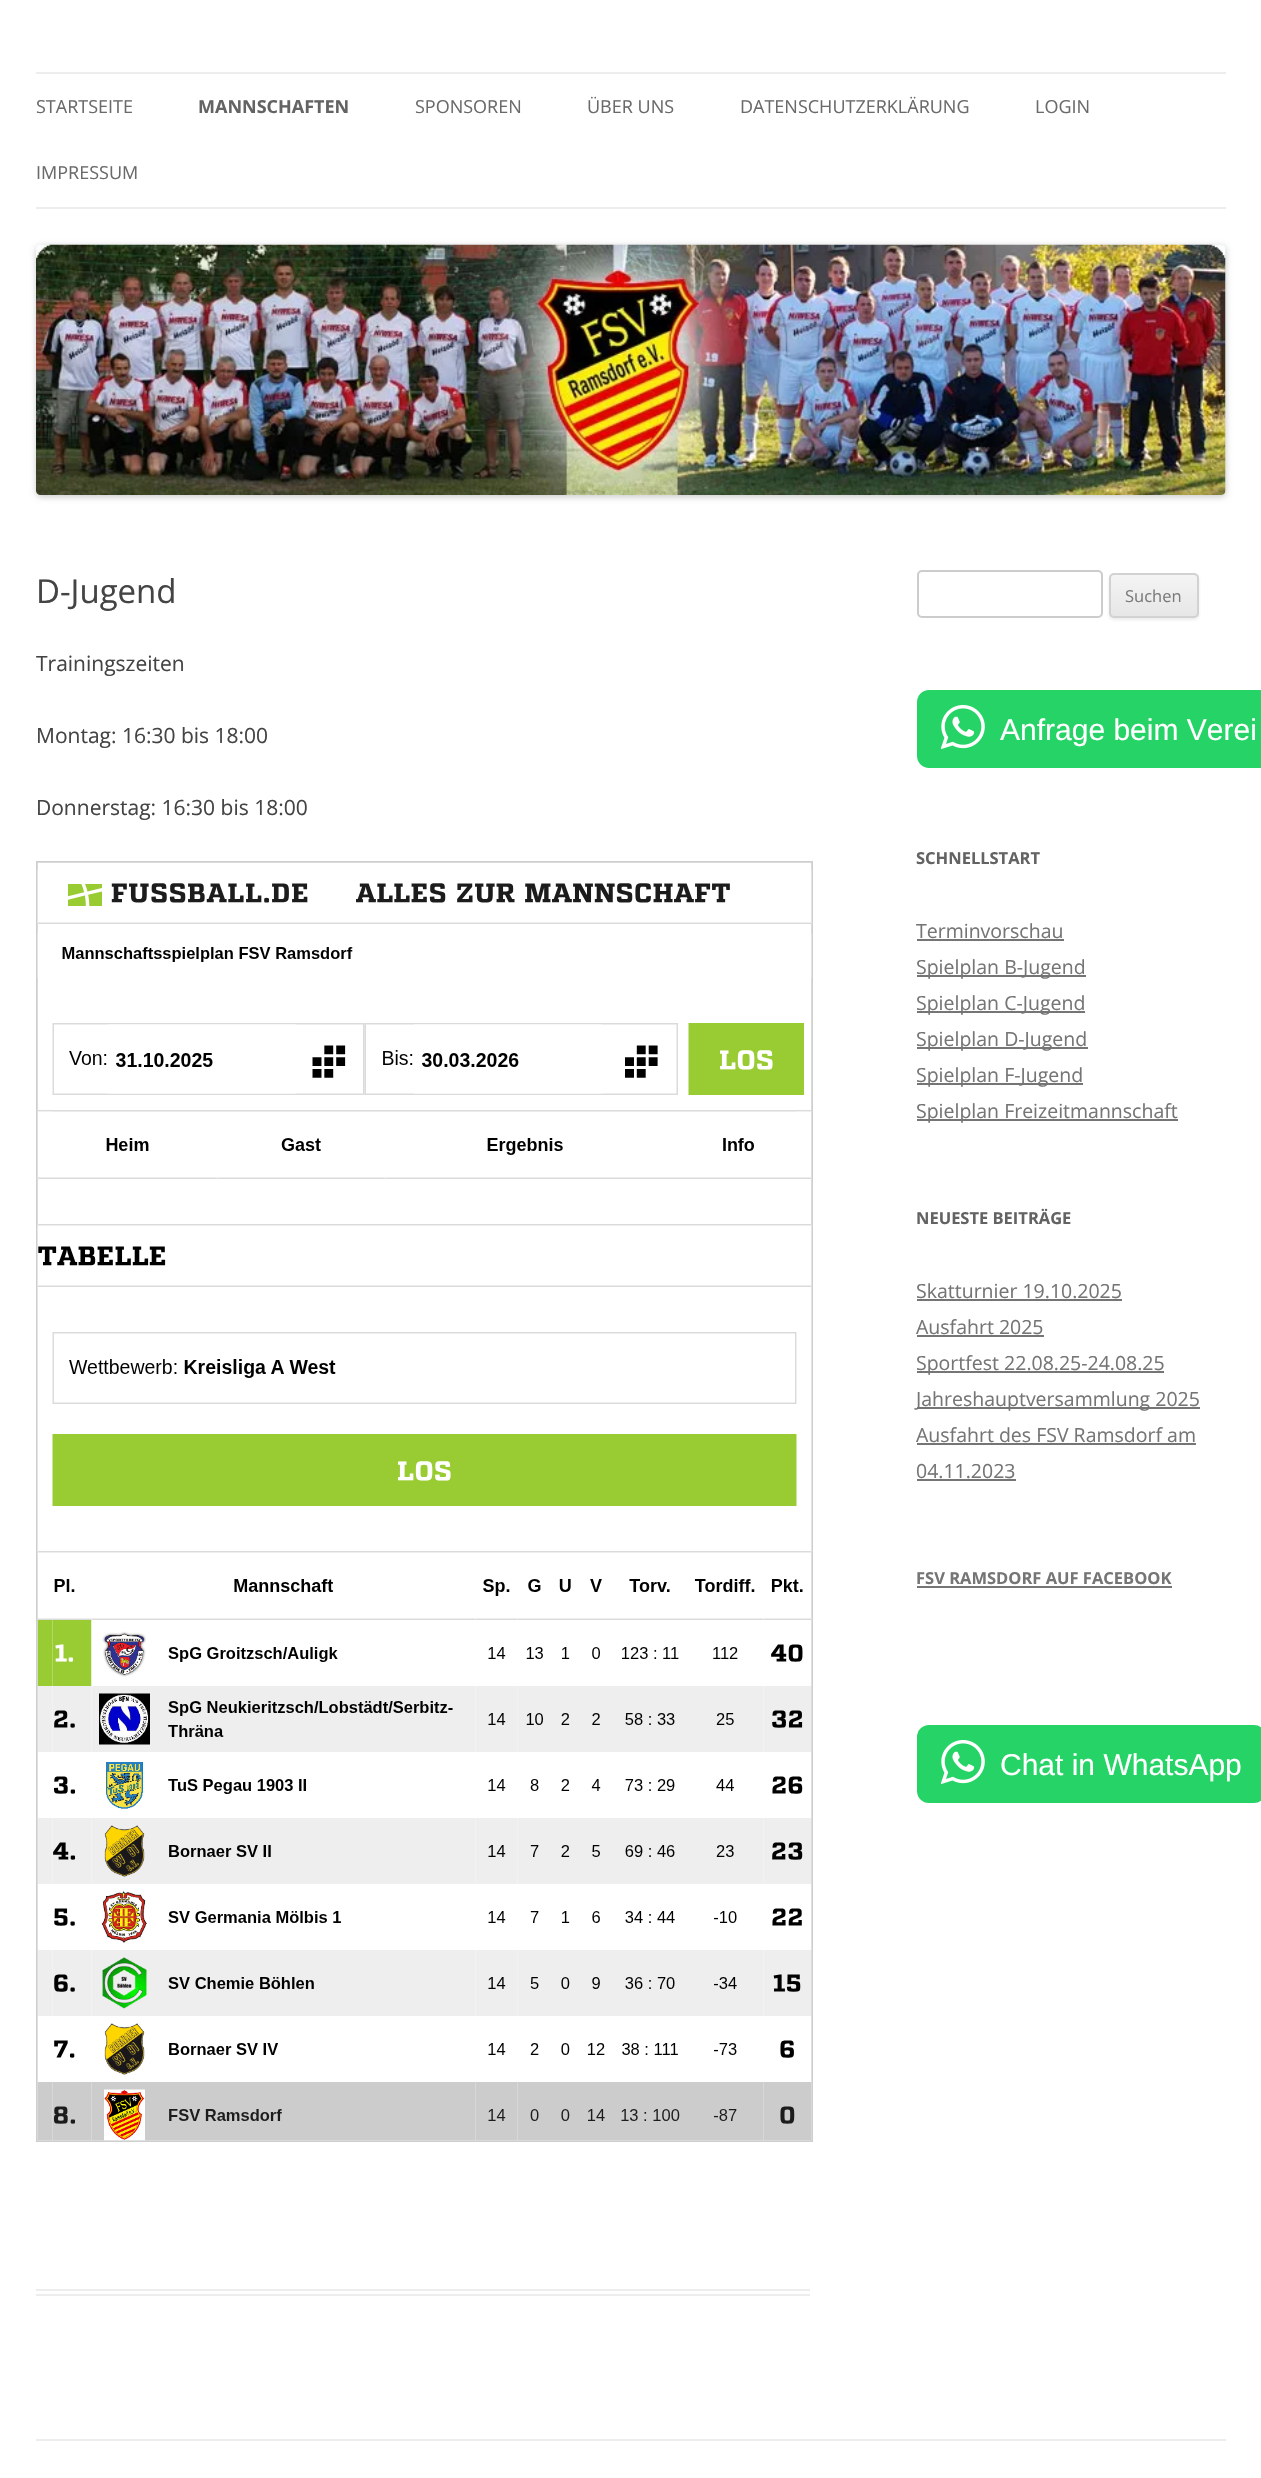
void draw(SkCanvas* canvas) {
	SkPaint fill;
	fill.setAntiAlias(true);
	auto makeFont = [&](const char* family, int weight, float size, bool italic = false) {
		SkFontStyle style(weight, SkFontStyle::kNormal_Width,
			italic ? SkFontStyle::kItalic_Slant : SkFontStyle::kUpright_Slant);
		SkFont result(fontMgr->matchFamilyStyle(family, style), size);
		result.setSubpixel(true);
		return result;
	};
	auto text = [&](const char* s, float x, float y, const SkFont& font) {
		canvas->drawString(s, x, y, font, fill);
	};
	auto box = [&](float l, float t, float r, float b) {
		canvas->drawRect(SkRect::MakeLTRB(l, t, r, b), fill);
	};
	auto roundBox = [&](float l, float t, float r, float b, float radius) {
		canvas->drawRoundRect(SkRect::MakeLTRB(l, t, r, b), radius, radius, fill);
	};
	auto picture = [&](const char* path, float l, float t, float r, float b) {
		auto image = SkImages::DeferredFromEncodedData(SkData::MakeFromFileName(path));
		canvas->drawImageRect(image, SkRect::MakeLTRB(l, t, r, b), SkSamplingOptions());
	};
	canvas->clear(0xFFFFFFFF);
	fill.setColor(0xFFEDEDED);
	box(36, 72, 1226, 74);
	box(36, 207, 1226, 209);
	fill.setColor(0x33000000);
	fill.setMaskFilter(SkMaskFilter::MakeBlur(kNormal_SkBlurStyle, 3));
	canvas->drawRoundRect(SkRect::MakeLTRB(36, 246, 1226, 497), 5, 5, fill);
	fill.setMaskFilter(nullptr);
	picture("image0.png", 36, 244, 1226, 495);
	fill.setColor(0xFFEDEDED);
	box(36, 2289, 810, 2291);
	box(36, 2294, 810, 2296);
	fill.setStyle(SkPaint::kStroke_Style);
	fill.setStrokeWidth(2);
	fill.setColor(0xFFCECECE);
	canvas->drawRect(SkRect::MakeLTRB(37, 862, 812, 2141), fill);
	picture("image1.png", 37, 862, 812, 2141);
	fill.setColor(0xFFCCCCCC);
	canvas->drawRoundRect(SkRect::MakeLTRB(918, 571, 1102, 617), 4, 4, fill);
	fill.setStyle(SkPaint::kFill_Style);
	fill.setColor(0x1A404040);
	fill.setMaskFilter(SkMaskFilter::MakeBlur(kNormal_SkBlurStyle, 1.5f));
	canvas->drawRoundRect(SkRect::MakeLTRB(1109, 575, 1199, 620), 5, 5, fill);
	fill.setMaskFilter(nullptr);
	canvas->save();
	canvas->clipPath(SkPathBuilder().moveTo(1114, 573).lineTo(1194, 573).cubicTo(1197, 573, 1199, 575, 1199, 578).lineTo(1199, 613).cubicTo(1199, 616, 1197, 618, 1194, 618).lineTo(1114, 618).cubicTo(1111, 618, 1109, 616, 1109, 613).lineTo(1109, 578).cubicTo(1109, 575, 1111, 573, 1114, 573).close().detach(), true);
	{
		const SkColor colors[] = {0xFFF4F4F4, 0xFFE6E6E6};
		const float stops[] = {0, 1};
		const SkPoint ends[] = {{1154, 575}, {1154, 617}};
		fill.setShader(SkGradientShader::MakeLinear(ends, colors, stops, 2, SkTileMode::kClamp));
		fill.setAlpha(255);
	}
	box(1109, 575, 1199, 617);
	canvas->restore();
	fill.setStyle(SkPaint::kStroke_Style);
	fill.setShader(nullptr);
	fill.setColor(0xFFD2D2D2);
	canvas->drawRoundRect(SkRect::MakeLTRB(1110, 574, 1198, 617), 4, 4, fill);
	fill.setStyle(SkPaint::kFill_Style);
	fill.setColor(0xFF25D366);
	canvas->drawPath(SkPathBuilder().moveTo(929, 690).lineTo(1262, 690).lineTo(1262, 768).lineTo(929, 768).cubicTo(922.5f, 768, 917, 762.5f, 917, 756).lineTo(917, 702).cubicTo(917, 695.5f, 922.5f, 690, 929, 690).close().detach(), fill);
	picture("image2.png", 941, 705, 985, 750);
	fill.setColor(0xFF757575);
	box(917, 939, 1064, 941);
	box(917, 975, 1086, 977);
	box(917, 1011, 1085, 1013);
	box(917, 1047, 1088, 1049);
	box(917, 1083, 1083, 1085);
	box(917, 1119, 1178, 1121);
	box(917, 1299, 1122, 1301);
	box(917, 1335, 1044, 1337);
	box(917, 1371, 1164, 1373);
	box(917, 1407, 1200, 1409);
	box(917, 1443, 1196, 1445);
	box(917, 1479, 1016, 1481);
	box(917, 1586, 1172, 1588);
	fill.setColor(0xFF25D366);
	roundBox(917, 1725, 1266, 1803, 12);
	picture("image2.png", 941, 1740, 985, 1785);
	fill.setColor(0xFFEDEDED);
	box(36, 2439, 1226, 2441);
	auto font1 = makeFont("Open Sans", 400, 18);
	fill.setColor(0xFF6A6A6A);
	text("STARTSEITE", 36, 113, font1);
	auto font2 = makeFont("Open Sans", 700, 18);
	fill.setColor(0xFF636363);
	text("MANNSCHAFTEN", 198, 113, font2);
	fill.setColor(0xFF6A6A6A);
	text("SPONSOREN", 415, 113, font1);
	text("ÜBER UNS", 587, 113, font1);
	text("DATENSCHUTZERKLÄRUNG", 740, 113, font1);
	text("LOGIN", 1035, 113, font1);
	text("IMPRESSUM", 36, 179, font1);
	auto font3 = makeFont("Open Sans", 400, 33);
	fill.setColor(0xFF444444);
	text("D-Jugend", 36, 603, font3);
	auto font4 = makeFont("Open Sans", 400, 21);
	text("Trainingszeiten", 36, 671, font4);
	text("Montag: 16:30 bis 18:00", 36, 743, font4);
	text("Donnerstag: 16:30 bis 18:00", 36, 815, font4);
	auto font5 = makeFont("Open Sans", 400, 16.5f);
	fill.setColor(0xFF7C7C7C);
	text("Suchen", 1125, 602, font5);
	auto font6 = makeFont("Liberation Sans", 400, 30);
	fill.setColor(0xFFFFFFFF);
	text("Anfrage beim Verei", 1000, 740, font6);
	auto font7 = makeFont("Open Sans", 700, 16.5f);
	fill.setColor(0xFF636363);
	text("SCHNELLSTART", 916, 864, font7);
	auto font8 = makeFont("Open Sans", 400, 19.5f);
	fill.setColor(0xFF757575);
	text("Terminvorschau", 916, 938, font8);
	text("Spielplan B-Jugend", 916, 974, font8);
	text("Spielplan C-Jugend", 916, 1010, font8);
	text("Spielplan D-Jugend", 916, 1046, font8);
	text("Spielplan F-Jugend", 916, 1082, font8);
	text("Spielplan Freizeitmannschaft", 916, 1118, font8);
	fill.setColor(0xFF636363);
	text("NEUESTE BEITRÄGE", 916, 1224, font7);
	fill.setColor(0xFF757575);
	text("Skatturnier 19.10.2025", 916, 1298, font8);
	text("Ausfahrt 2025", 916, 1334, font8);
	text("Sportfest 22.08.25-24.08.25", 916, 1370, font8);
	text("Jahreshauptversammlung 2025", 916, 1406, font8);
	text("Ausfahrt des FSV Ramsdorf am", 916, 1442, font8);
	text("04.11.2023", 916, 1478, font8);
	text("FSV RAMSDORF AUF FACEBOOK", 916, 1584, font7);
	fill.setColor(0xFFFFFFFF);
	text("Chat in WhatsApp", 1000, 1775, font6);
}
